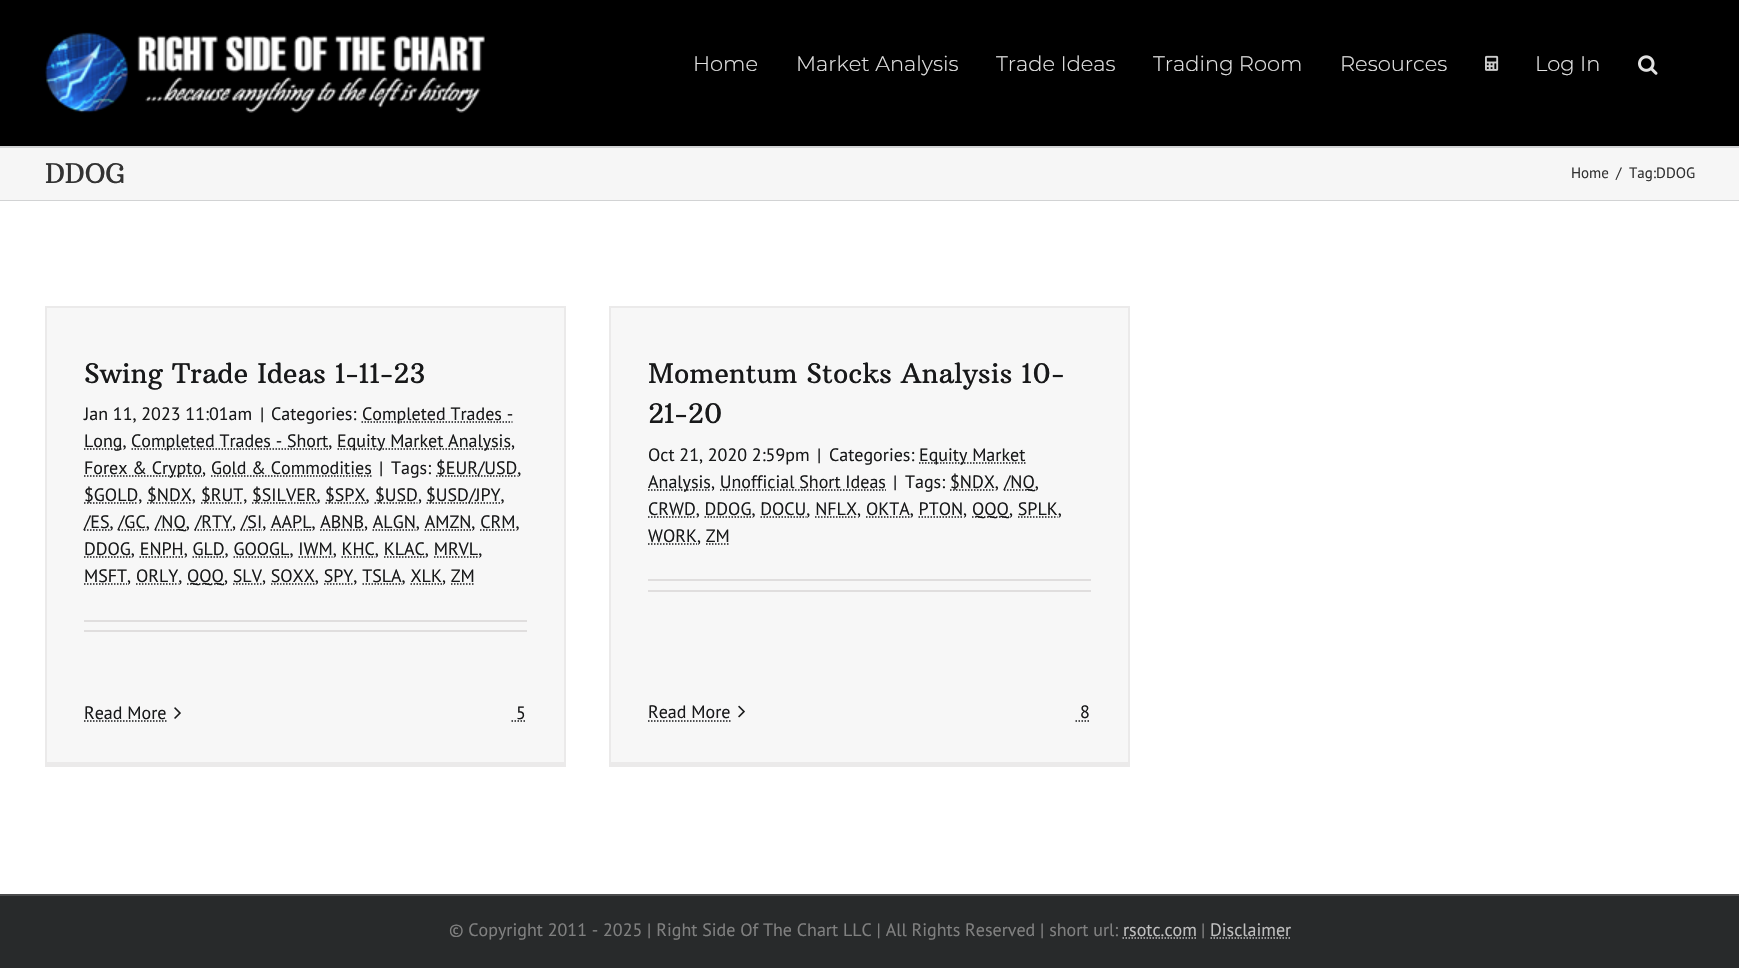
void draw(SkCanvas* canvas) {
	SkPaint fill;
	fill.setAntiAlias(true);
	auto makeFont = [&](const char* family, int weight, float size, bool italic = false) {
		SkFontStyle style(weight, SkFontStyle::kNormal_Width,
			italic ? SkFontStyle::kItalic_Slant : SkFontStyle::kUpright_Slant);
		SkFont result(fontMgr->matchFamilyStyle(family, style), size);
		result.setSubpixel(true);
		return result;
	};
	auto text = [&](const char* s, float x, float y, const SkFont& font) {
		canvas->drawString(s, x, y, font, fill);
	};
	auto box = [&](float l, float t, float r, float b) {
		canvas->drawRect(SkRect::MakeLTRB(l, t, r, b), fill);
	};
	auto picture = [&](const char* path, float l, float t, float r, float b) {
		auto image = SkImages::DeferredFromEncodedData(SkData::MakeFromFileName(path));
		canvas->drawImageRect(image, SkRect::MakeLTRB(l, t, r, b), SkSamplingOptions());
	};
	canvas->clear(0xFFF6F6F6);
	fill.setColor(0xFF000000);
	box(0, 0, 1739, 146);
	picture("image0.png", 45, 32, 485, 113);
	picture("image1.png", 1485, 55, 1499, 71);
	picture("image2.png", 1638, 55, 1658, 75);
	fill.setColor(0xFFD2D3D4);
	box(0, 146, 1739, 148);
	box(0, 200, 1739, 201);
	fill.setColor(0xFFFFFFFF);
	box(0, 201, 1739, 894);
	fill.setColor(0xFFF7F7F7);
	box(47, 308, 564, 762);
	fill.setColor(0xFFEBEAEA);
	box(45, 306, 566, 308);
	box(564, 306, 566, 767);
	box(45, 762, 566, 767);
	box(45, 306, 47, 767);
	fill.setStyle(SkPaint::kStroke_Style);
	fill.setStrokeWidth(1.5f);
	fill.setColor(0xFF18191A);
	fill.setPathEffect(SkDashPathEffect::Make({{1.5f, 1.5f}}, 0));
	canvas->drawPath(SkPathBuilder().moveTo(361.5f, 422).lineTo(512.5f, 422).detach(), fill);
	fill.setPathEffect(nullptr);
	fill.setPathEffect(SkDashPathEffect::Make({{1.5f, 1.5f}}, 0));
	canvas->drawPath(SkPathBuilder().moveTo(84, 449).lineTo(122.5f, 449).detach(), fill);
	fill.setPathEffect(nullptr);
	fill.setPathEffect(SkDashPathEffect::Make({{1.5f, 1.5f}}, 0));
	canvas->drawPath(SkPathBuilder().moveTo(131.5f, 449).lineTo(328.5f, 449).detach(), fill);
	fill.setPathEffect(nullptr);
	fill.setPathEffect(SkDashPathEffect::Make({{1.5f, 1.5f}}, 0));
	canvas->drawPath(SkPathBuilder().moveTo(337.5f, 449).lineTo(511.5f, 449).detach(), fill);
	fill.setPathEffect(nullptr);
	fill.setPathEffect(SkDashPathEffect::Make({{1.5f, 1.5f}}, 0));
	canvas->drawPath(SkPathBuilder().moveTo(84, 476).lineTo(202, 476).detach(), fill);
	fill.setPathEffect(nullptr);
	fill.setPathEffect(SkDashPathEffect::Make({{1.5f, 1.5f}}, 0));
	canvas->drawPath(SkPathBuilder().moveTo(436, 476).lineTo(517.5f, 476).detach(), fill);
	fill.setPathEffect(nullptr);
	fill.setPathEffect(SkDashPathEffect::Make({{1.5f, 1.5f}}, 0));
	canvas->drawPath(SkPathBuilder().moveTo(211, 476).lineTo(371.5f, 476).detach(), fill);
	fill.setPathEffect(nullptr);
	fill.setPathEffect(SkDashPathEffect::Make({{1.5f, 1.5f}}, 0));
	canvas->drawPath(SkPathBuilder().moveTo(84, 503).lineTo(138, 503).detach(), fill);
	fill.setPathEffect(nullptr);
	fill.setPathEffect(SkDashPathEffect::Make({{1.5f, 1.5f}}, 0));
	canvas->drawPath(SkPathBuilder().moveTo(147, 503).lineTo(192, 503).detach(), fill);
	fill.setPathEffect(nullptr);
	fill.setPathEffect(SkDashPathEffect::Make({{1.5f, 1.5f}}, 0));
	canvas->drawPath(SkPathBuilder().moveTo(201, 503).lineTo(243, 503).detach(), fill);
	fill.setPathEffect(nullptr);
	fill.setPathEffect(SkDashPathEffect::Make({{1.5f, 1.5f}}, 0));
	canvas->drawPath(SkPathBuilder().moveTo(252, 503).lineTo(316.5f, 503).detach(), fill);
	fill.setPathEffect(nullptr);
	fill.setPathEffect(SkDashPathEffect::Make({{1.5f, 1.5f}}, 0));
	canvas->drawPath(SkPathBuilder().moveTo(325.5f, 503).lineTo(366, 503).detach(), fill);
	fill.setPathEffect(nullptr);
	fill.setPathEffect(SkDashPathEffect::Make({{1.5f, 1.5f}}, 0));
	canvas->drawPath(SkPathBuilder().moveTo(374.5f, 503).lineTo(417.5f, 503).detach(), fill);
	fill.setPathEffect(nullptr);
	fill.setPathEffect(SkDashPathEffect::Make({{1.5f, 1.5f}}, 0));
	canvas->drawPath(SkPathBuilder().moveTo(426.5f, 503).lineTo(501, 503).detach(), fill);
	fill.setPathEffect(nullptr);
	fill.setPathEffect(SkDashPathEffect::Make({{1.5f, 1.5f}}, 0));
	canvas->drawPath(SkPathBuilder().moveTo(84, 530).lineTo(109.5f, 530).detach(), fill);
	fill.setPathEffect(nullptr);
	fill.setPathEffect(SkDashPathEffect::Make({{1.5f, 1.5f}}, 0));
	canvas->drawPath(SkPathBuilder().moveTo(118.5f, 530).lineTo(146, 530).detach(), fill);
	fill.setPathEffect(nullptr);
	fill.setPathEffect(SkDashPathEffect::Make({{1.5f, 1.5f}}, 0));
	canvas->drawPath(SkPathBuilder().moveTo(155, 530).lineTo(186, 530).detach(), fill);
	fill.setPathEffect(nullptr);
	fill.setPathEffect(SkDashPathEffect::Make({{1.5f, 1.5f}}, 0));
	canvas->drawPath(SkPathBuilder().moveTo(194.5f, 530).lineTo(232, 530).detach(), fill);
	fill.setPathEffect(nullptr);
	fill.setPathEffect(SkDashPathEffect::Make({{1.5f, 1.5f}}, 0));
	canvas->drawPath(SkPathBuilder().moveTo(240.5f, 530).lineTo(262, 530).detach(), fill);
	fill.setPathEffect(nullptr);
	fill.setPathEffect(SkDashPathEffect::Make({{1.5f, 1.5f}}, 0));
	canvas->drawPath(SkPathBuilder().moveTo(270.5f, 530).lineTo(311, 530).detach(), fill);
	fill.setPathEffect(nullptr);
	fill.setPathEffect(SkDashPathEffect::Make({{1.5f, 1.5f}}, 0));
	canvas->drawPath(SkPathBuilder().moveTo(320, 530).lineTo(363.5f, 530).detach(), fill);
	fill.setPathEffect(nullptr);
	fill.setPathEffect(SkDashPathEffect::Make({{1.5f, 1.5f}}, 0));
	canvas->drawPath(SkPathBuilder().moveTo(372.5f, 530).lineTo(415.5f, 530).detach(), fill);
	fill.setPathEffect(nullptr);
	fill.setPathEffect(SkDashPathEffect::Make({{1.5f, 1.5f}}, 0));
	canvas->drawPath(SkPathBuilder().moveTo(424.5f, 530).lineTo(471, 530).detach(), fill);
	fill.setPathEffect(nullptr);
	fill.setPathEffect(SkDashPathEffect::Make({{1.5f, 1.5f}}, 0));
	canvas->drawPath(SkPathBuilder().moveTo(480, 530).lineTo(515, 530).detach(), fill);
	fill.setPathEffect(nullptr);
	fill.setPathEffect(SkDashPathEffect::Make({{1.5f, 1.5f}}, 0));
	canvas->drawPath(SkPathBuilder().moveTo(84, 557).lineTo(131, 557).detach(), fill);
	fill.setPathEffect(nullptr);
	fill.setPathEffect(SkDashPathEffect::Make({{1.5f, 1.5f}}, 0));
	canvas->drawPath(SkPathBuilder().moveTo(139.5f, 557).lineTo(183.5f, 557).detach(), fill);
	fill.setPathEffect(nullptr);
	fill.setPathEffect(SkDashPathEffect::Make({{1.5f, 1.5f}}, 0));
	canvas->drawPath(SkPathBuilder().moveTo(192.5f, 557).lineTo(224.5f, 557).detach(), fill);
	fill.setPathEffect(nullptr);
	fill.setPathEffect(SkDashPathEffect::Make({{1.5f, 1.5f}}, 0));
	canvas->drawPath(SkPathBuilder().moveTo(233.5f, 557).lineTo(289.5f, 557).detach(), fill);
	fill.setPathEffect(nullptr);
	fill.setPathEffect(SkDashPathEffect::Make({{1.5f, 1.5f}}, 0));
	canvas->drawPath(SkPathBuilder().moveTo(298.5f, 557).lineTo(332.5f, 557).detach(), fill);
	fill.setPathEffect(nullptr);
	fill.setPathEffect(SkDashPathEffect::Make({{1.5f, 1.5f}}, 0));
	canvas->drawPath(SkPathBuilder().moveTo(341.5f, 557).lineTo(375, 557).detach(), fill);
	fill.setPathEffect(nullptr);
	fill.setPathEffect(SkDashPathEffect::Make({{1.5f, 1.5f}}, 0));
	canvas->drawPath(SkPathBuilder().moveTo(384, 557).lineTo(425, 557).detach(), fill);
	fill.setPathEffect(nullptr);
	fill.setPathEffect(SkDashPathEffect::Make({{1.5f, 1.5f}}, 0));
	canvas->drawPath(SkPathBuilder().moveTo(434, 557).lineTo(478, 557).detach(), fill);
	fill.setPathEffect(nullptr);
	fill.setPathEffect(SkDashPathEffect::Make({{1.5f, 1.5f}}, 0));
	canvas->drawPath(SkPathBuilder().moveTo(84, 584).lineTo(127, 584).detach(), fill);
	fill.setPathEffect(nullptr);
	fill.setPathEffect(SkDashPathEffect::Make({{1.5f, 1.5f}}, 0));
	canvas->drawPath(SkPathBuilder().moveTo(136, 584).lineTo(178.5f, 584).detach(), fill);
	fill.setPathEffect(nullptr);
	fill.setPathEffect(SkDashPathEffect::Make({{1.5f, 1.5f}}, 0));
	canvas->drawPath(SkPathBuilder().moveTo(187, 584).lineTo(224, 584).detach(), fill);
	fill.setPathEffect(nullptr);
	fill.setPathEffect(SkDashPathEffect::Make({{1.5f, 1.5f}}, 0));
	canvas->drawPath(SkPathBuilder().moveTo(233, 584).lineTo(262, 584).detach(), fill);
	fill.setPathEffect(nullptr);
	fill.setPathEffect(SkDashPathEffect::Make({{1.5f, 1.5f}}, 0));
	canvas->drawPath(SkPathBuilder().moveTo(271, 584).lineTo(315, 584).detach(), fill);
	fill.setPathEffect(nullptr);
	fill.setPathEffect(SkDashPathEffect::Make({{1.5f, 1.5f}}, 0));
	canvas->drawPath(SkPathBuilder().moveTo(324, 584).lineTo(353.5f, 584).detach(), fill);
	fill.setPathEffect(nullptr);
	fill.setPathEffect(SkDashPathEffect::Make({{1.5f, 1.5f}}, 0));
	canvas->drawPath(SkPathBuilder().moveTo(362.5f, 584).lineTo(402, 584).detach(), fill);
	fill.setPathEffect(nullptr);
	fill.setPathEffect(SkDashPathEffect::Make({{1.5f, 1.5f}}, 0));
	canvas->drawPath(SkPathBuilder().moveTo(410.5f, 584).lineTo(442, 584).detach(), fill);
	fill.setPathEffect(nullptr);
	fill.setPathEffect(SkDashPathEffect::Make({{1.5f, 1.5f}}, 0));
	canvas->drawPath(SkPathBuilder().moveTo(451, 584).lineTo(475, 584).detach(), fill);
	fill.setPathEffect(nullptr);
	fill.setStyle(SkPaint::kFill_Style);
	fill.setColor(0xFFE0DEDE);
	box(84, 620, 527, 622);
	box(84, 630, 527, 632);
	fill.setStyle(SkPaint::kStroke_Style);
	fill.setColor(0xFF18191A);
	fill.setPathEffect(SkDashPathEffect::Make({{1.5f, 1.5f}}, 0));
	canvas->drawPath(SkPathBuilder().moveTo(84, 721).lineTo(166.5f, 721).detach(), fill);
	fill.setPathEffect(nullptr);
	picture("image3.png", 174, 707, 181, 719);
	fill.setPathEffect(SkDashPathEffect::Make({{1.5f, 1.5f}}, 0));
	canvas->drawPath(SkPathBuilder().moveTo(511.5f, 721).lineTo(526, 721).detach(), fill);
	fill.setPathEffect(nullptr);
	fill.setStyle(SkPaint::kFill_Style);
	fill.setColor(0xFFF7F7F7);
	box(611, 308, 1128, 762);
	fill.setColor(0xFFEBEAEA);
	box(609, 306, 1130, 308);
	box(1128, 306, 1130, 767);
	box(609, 762, 1130, 767);
	box(609, 306, 611, 767);
	fill.setStyle(SkPaint::kStroke_Style);
	fill.setColor(0xFF18191A);
	fill.setPathEffect(SkDashPathEffect::Make({{1.5f, 1.5f}}, 0));
	canvas->drawPath(SkPathBuilder().moveTo(919, 463).lineTo(1025.5f, 463).detach(), fill);
	fill.setPathEffect(nullptr);
	fill.setPathEffect(SkDashPathEffect::Make({{1.5f, 1.5f}}, 0));
	canvas->drawPath(SkPathBuilder().moveTo(648, 490).lineTo(711, 490).detach(), fill);
	fill.setPathEffect(nullptr);
	fill.setPathEffect(SkDashPathEffect::Make({{1.5f, 1.5f}}, 0));
	canvas->drawPath(SkPathBuilder().moveTo(950, 490).lineTo(995, 490).detach(), fill);
	fill.setPathEffect(nullptr);
	fill.setPathEffect(SkDashPathEffect::Make({{1.5f, 1.5f}}, 0));
	canvas->drawPath(SkPathBuilder().moveTo(1004, 490).lineTo(1034.5f, 490).detach(), fill);
	fill.setPathEffect(nullptr);
	fill.setPathEffect(SkDashPathEffect::Make({{1.5f, 1.5f}}, 0));
	canvas->drawPath(SkPathBuilder().moveTo(720, 490).lineTo(886, 490).detach(), fill);
	fill.setPathEffect(nullptr);
	fill.setPathEffect(SkDashPathEffect::Make({{1.5f, 1.5f}}, 0));
	canvas->drawPath(SkPathBuilder().moveTo(648, 517).lineTo(695.5f, 517).detach(), fill);
	fill.setPathEffect(nullptr);
	fill.setPathEffect(SkDashPathEffect::Make({{1.5f, 1.5f}}, 0));
	canvas->drawPath(SkPathBuilder().moveTo(704.5f, 517).lineTo(751.5f, 517).detach(), fill);
	fill.setPathEffect(nullptr);
	fill.setPathEffect(SkDashPathEffect::Make({{1.5f, 1.5f}}, 0));
	canvas->drawPath(SkPathBuilder().moveTo(760.5f, 517).lineTo(806.5f, 517).detach(), fill);
	fill.setPathEffect(nullptr);
	fill.setPathEffect(SkDashPathEffect::Make({{1.5f, 1.5f}}, 0));
	canvas->drawPath(SkPathBuilder().moveTo(815, 517).lineTo(857, 517).detach(), fill);
	fill.setPathEffect(nullptr);
	fill.setPathEffect(SkDashPathEffect::Make({{1.5f, 1.5f}}, 0));
	canvas->drawPath(SkPathBuilder().moveTo(866, 517).lineTo(910, 517).detach(), fill);
	fill.setPathEffect(nullptr);
	fill.setPathEffect(SkDashPathEffect::Make({{1.5f, 1.5f}}, 0));
	canvas->drawPath(SkPathBuilder().moveTo(918.5f, 517).lineTo(963, 517).detach(), fill);
	fill.setPathEffect(nullptr);
	fill.setPathEffect(SkDashPathEffect::Make({{1.5f, 1.5f}}, 0));
	canvas->drawPath(SkPathBuilder().moveTo(972, 517).lineTo(1009, 517).detach(), fill);
	fill.setPathEffect(nullptr);
	fill.setPathEffect(SkDashPathEffect::Make({{1.5f, 1.5f}}, 0));
	canvas->drawPath(SkPathBuilder().moveTo(1018, 517).lineTo(1057.5f, 517).detach(), fill);
	fill.setPathEffect(nullptr);
	fill.setPathEffect(SkDashPathEffect::Make({{1.5f, 1.5f}}, 0));
	canvas->drawPath(SkPathBuilder().moveTo(648, 544).lineTo(697, 544).detach(), fill);
	fill.setPathEffect(nullptr);
	fill.setPathEffect(SkDashPathEffect::Make({{1.5f, 1.5f}}, 0));
	canvas->drawPath(SkPathBuilder().moveTo(706, 544).lineTo(730, 544).detach(), fill);
	fill.setPathEffect(nullptr);
	fill.setStyle(SkPaint::kFill_Style);
	fill.setColor(0xFFE0DEDE);
	box(648, 579, 1091, 581);
	box(648, 590, 1091, 592);
	fill.setStyle(SkPaint::kStroke_Style);
	fill.setColor(0xFF18191A);
	fill.setPathEffect(SkDashPathEffect::Make({{1.5f, 1.5f}}, 0));
	canvas->drawPath(SkPathBuilder().moveTo(648, 721).lineTo(730.5f, 721).detach(), fill);
	fill.setPathEffect(nullptr);
	picture("image4.png", 738, 705, 745, 718);
	fill.setPathEffect(SkDashPathEffect::Make({{1.5f, 1.5f}}, 0));
	canvas->drawPath(SkPathBuilder().moveTo(1075.5f, 721).lineTo(1090, 721).detach(), fill);
	fill.setPathEffect(nullptr);
	fill.setStyle(SkPaint::kFill_Style);
	fill.setColor(0xFF282A2B);
	box(0, 896, 1739, 968);
	fill.setColor(0xFF4B4C4D);
	box(0, 894, 1739, 896);
	fill.setStyle(SkPaint::kStroke_Style);
	fill.setColor(0xFFBFBFBF);
	fill.setPathEffect(SkDashPathEffect::Make({{1.5f, 1.5f}}, 0));
	canvas->drawPath(SkPathBuilder().moveTo(1122.5f, 938).lineTo(1196.5f, 938).detach(), fill);
	fill.setPathEffect(nullptr);
	fill.setPathEffect(SkDashPathEffect::Make({{1.5f, 1.5f}}, 0));
	canvas->drawPath(SkPathBuilder().moveTo(1210.5f, 938).lineTo(1291.5f, 938).detach(), fill);
	fill.setPathEffect(nullptr);
	auto font1 = makeFont("Montserrat", 300, 21);
	fill.setStyle(SkPaint::kFill_Style);
	fill.setColor(0xFFE2E2E2);
	text("Home", 693, 71, font1);
	text("Market Analysis", 796, 71, font1);
	text("Trade Ideas", 996, 71, font1);
	text("Trading Room", 1153, 71, font1);
	text("Resources", 1340, 71, font1);
	text("Log In", 1535, 71, font1);
	auto font2 = makeFont("Arbutus Slab", 400, 27);
	fill.setColor(0xFF333333);
	text("DDOG", 45, 183, font2);
	auto font3 = makeFont("PT Sans", 400, 15);
	text("Home", 1571, 178, font3);
	text("/", 1616, 178, font3);
	text("Tag:DDOG", 1629, 178, font3);
	fill.setColor(0xFF18191A);
	text("Swing Trade Ideas 1-11-23", 84, 383, font2);
	auto font4 = makeFont("PT Sans", 400, 18);
	text("Jan 11, 2023 11:01am", 84, 420, font4);
	text("|", 260, 420, font4);
	text("Categories:", 271, 420, font4);
	text("Completed Trades -", 362, 420, font4);
	text("Long,", 84, 447, font4);
	text("Completed Trades - Short,", 131, 447, font4);
	text("Equity Market Analysis,", 337, 447, font4);
	text("Forex & Crypto, Gold & Commodities", 84, 474, font4);
	text("|", 379, 474, font4);
	text("Tags:", 391, 474, font4);
	text("$EUR/USD,", 436, 474, font4);
	text("$GOLD,", 84, 501, font4);
	text("$NDX,", 147, 501, font4);
	text("$RUT,", 201, 501, font4);
	text("$SILVER,", 252, 501, font4);
	text("$SPX,", 325, 501, font4);
	text("$USD,", 375, 501, font4);
	text("$USD/JPY,", 426, 501, font4);
	text("/ES,", 84, 528, font4);
	text("/GC,", 118, 528, font4);
	text("/NQ,", 155, 528, font4);
	text("/RTY,", 195, 528, font4);
	text("/SI, AAPL, ABNB, ALGN, AMZN, CRM,", 241, 528, font4);
	text("DDOG, ENPH, GLD, GOOGL, IWM, KHC, KLAC, MRVL,", 84, 555, font4);
	text("MSFT, ORLY,", 84, 582, font4);
	text("QQQ, SLV, SOXX, SPY, TSLA, XLK, ZM", 187, 582, font4);
	text("Read More", 84, 719, font4);
	text("5", 516, 719, font4);
	text("Momentum Stocks Analysis 10-", 648, 383, font2);
	text("21-20", 648, 423, font2);
	text("Oct 21, 2020 2:59pm", 648, 461, font4);
	text("|", 817, 461, font4);
	text("Categories:", 829, 461, font4);
	text("Equity Market", 919, 461, font4);
	text("Analysis, Unofficial Short Ideas", 648, 488, font4);
	text("|", 893, 488, font4);
	text("Tags:", 905, 488, font4);
	text("$NDX,", 950, 488, font4);
	text("/NQ,", 1004, 488, font4);
	text("CRWD, DDOG, DOCU, NFLX, OKTA, PTON,", 648, 515, font4);
	text("QQQ, SPLK,", 972, 515, font4);
	text("WORK, ZM", 648, 542, font4);
	text("Read More", 648, 718, font4);
	text("8", 1080, 718, font4);
	fill.setColor(0xFF808080);
	text("© Copyright 2011 - 2025 | Right Side Of The Chart LLC | All Rights Reserved | short url:", 449, 936, font4);
	fill.setColor(0xFFBFBFBF);
	text("rsotc.com", 1123, 936, font4);
	fill.setColor(0xFF808080);
	text("|", 1201, 936, font4);
	fill.setColor(0xFFBFBFBF);
	text("Disclaimer", 1210, 936, font4);
}
